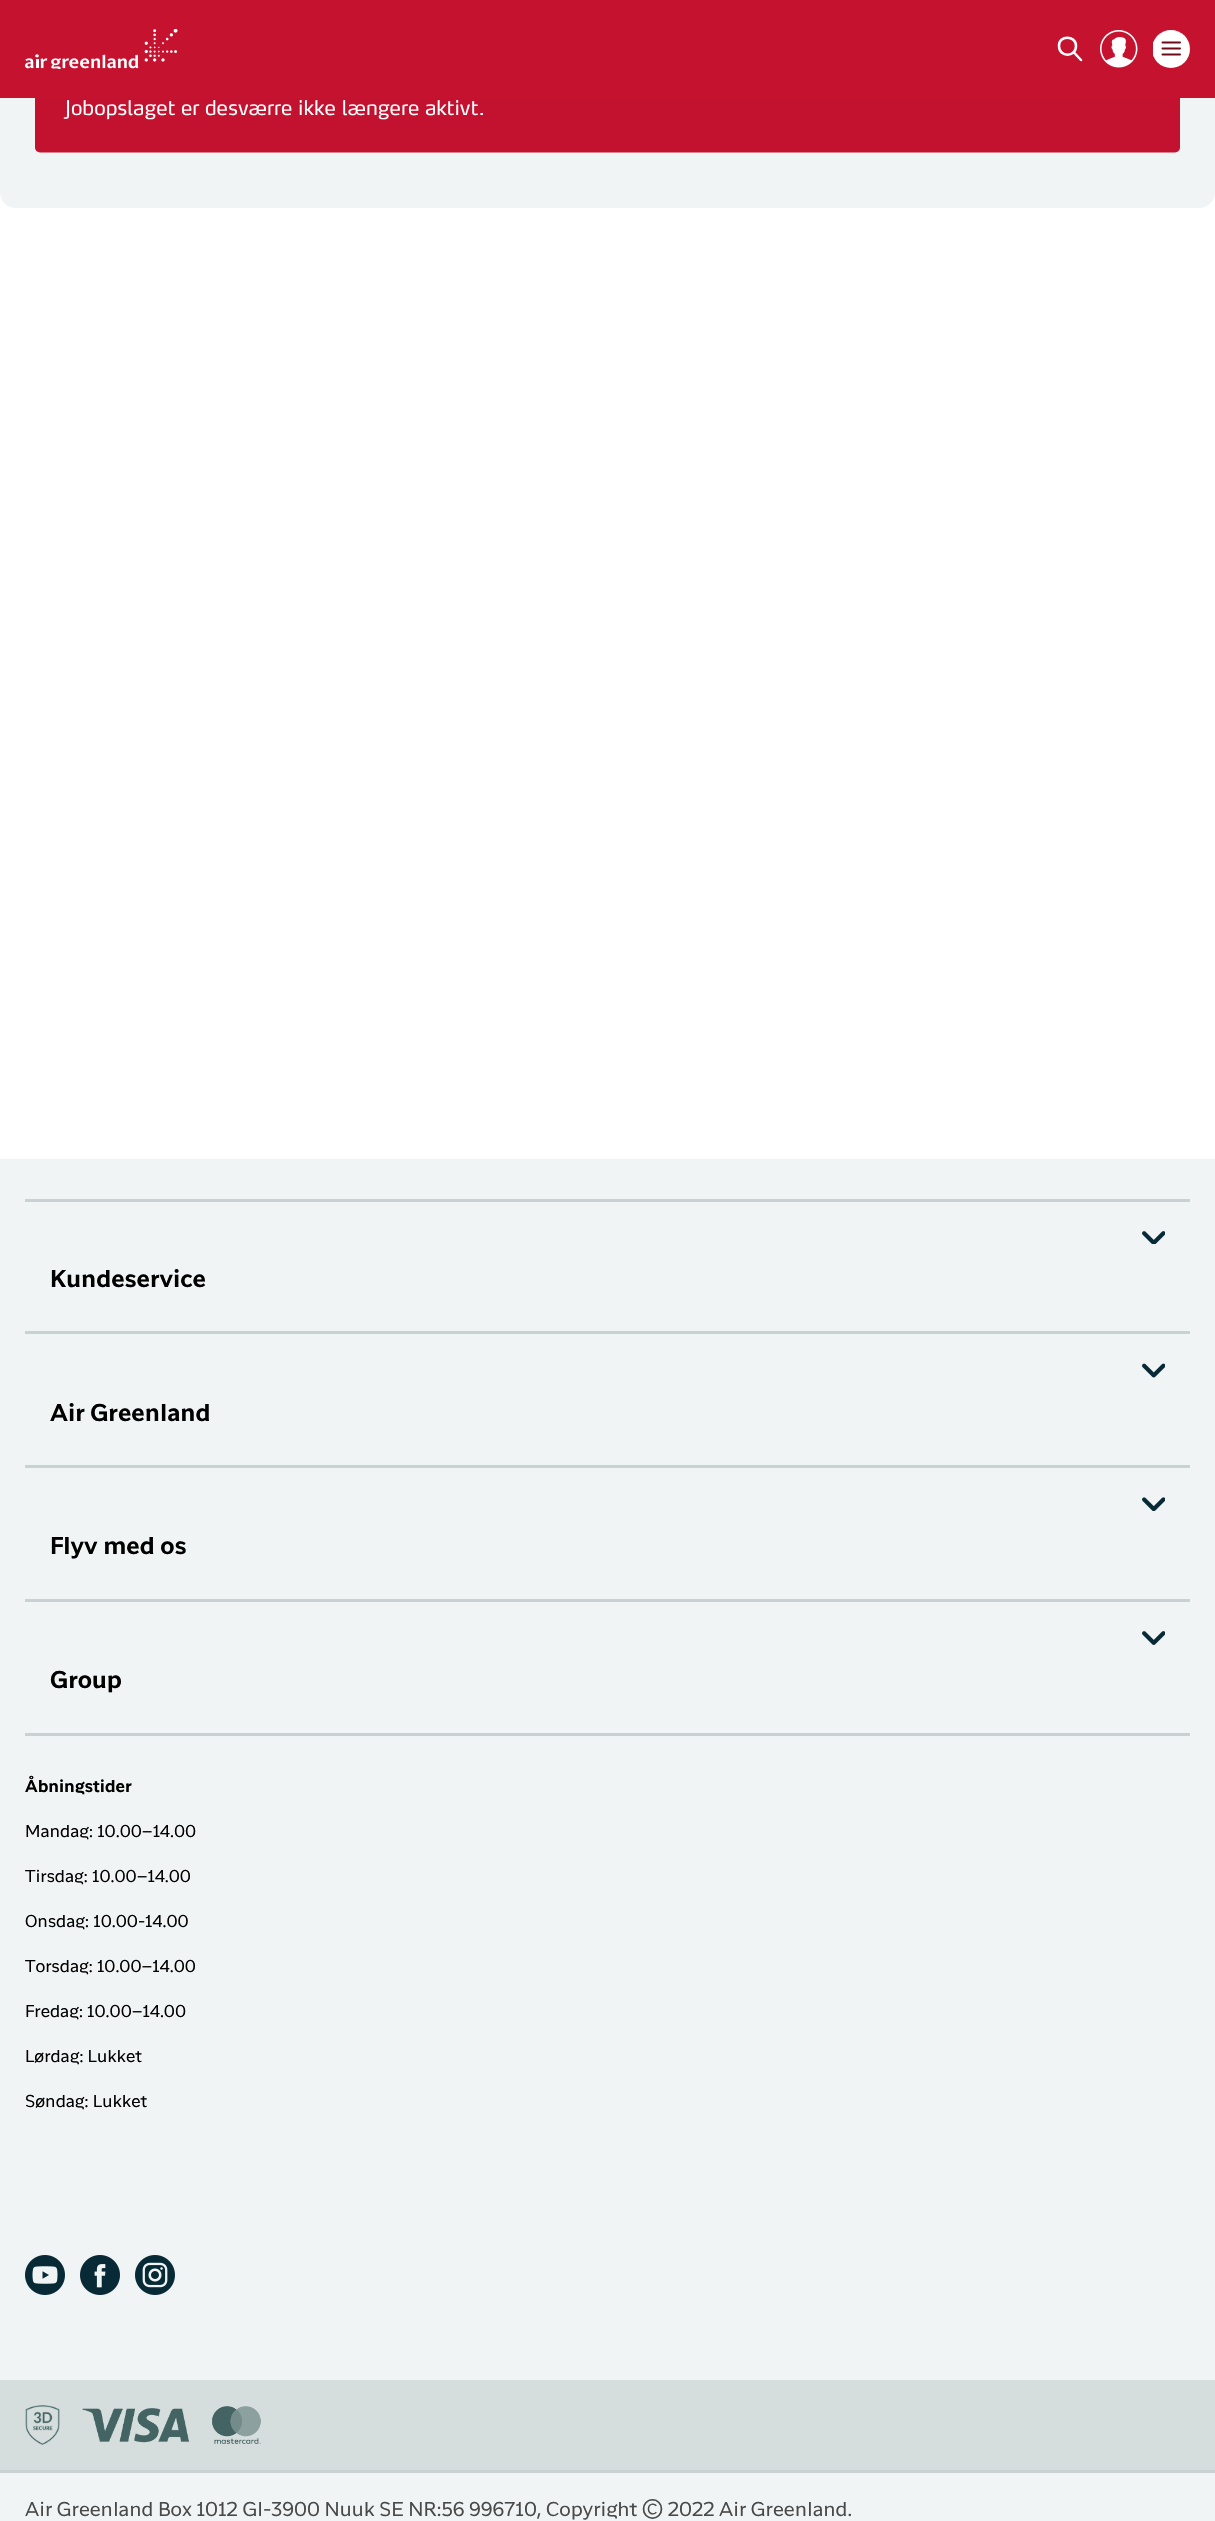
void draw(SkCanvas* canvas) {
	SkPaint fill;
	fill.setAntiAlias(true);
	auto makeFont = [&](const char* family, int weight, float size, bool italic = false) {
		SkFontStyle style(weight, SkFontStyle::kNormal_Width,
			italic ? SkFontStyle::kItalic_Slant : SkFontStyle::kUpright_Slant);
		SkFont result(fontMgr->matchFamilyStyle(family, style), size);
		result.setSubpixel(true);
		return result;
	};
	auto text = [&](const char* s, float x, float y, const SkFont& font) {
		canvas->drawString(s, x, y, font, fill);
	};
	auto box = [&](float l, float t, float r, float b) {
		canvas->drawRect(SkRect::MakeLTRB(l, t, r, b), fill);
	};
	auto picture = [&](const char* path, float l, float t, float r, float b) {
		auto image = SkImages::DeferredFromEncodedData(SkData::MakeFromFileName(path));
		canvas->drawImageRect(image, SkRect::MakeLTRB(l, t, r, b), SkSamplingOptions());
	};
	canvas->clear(0xFFFFFFFF);
	fill.setColor(0xFFF1F4F4);
	canvas->drawPath(SkPathBuilder().moveTo(0, -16).lineTo(1215, -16).lineTo(1215, 192).cubicTo(1215, 201, 1208, 208, 1199, 208).lineTo(16, 208).cubicTo(7, 208, 0, 201, 0, 192).close().detach(), fill);
	picture("image0.png", 35, 98, 1180, 153);
	fill.setColor(0xFFC4122F);
	box(0, 0, 1215, 98);
	picture("image1.png", 25, 29, 178, 69);
	fill.setStyle(SkPaint::kStroke_Style);
	fill.setStrokeWidth(2.5f);
	fill.setStrokeCap(SkPaint::kRound_Cap);
	fill.setStrokeJoin(SkPaint::kRound_Join);
	fill.setColor(0xFFFFFFFF);
	canvas->drawPath(SkPathBuilder().moveTo(1081, 60).lineTo(1074, 52.5f).moveTo(1076, 46).cubicTo(1076, 57.5f, 1059, 57.5f, 1059, 46).cubicTo(1058.5f, 35, 1076, 35, 1076, 46).close().detach(), fill);
	picture("image2.png", 1100, 30, 1138, 68);
	canvas->save();
	canvas->clipRect(SkRect::MakeLTRB(1153, 30, 1190, 68));
	fill.setStyle(SkPaint::kFill_Style);
	canvas->drawCircle(1171, 49, 19, fill);
	canvas->restore();
	fill.setStyle(SkPaint::kStroke_Style);
	fill.setStrokeWidth(2);
	fill.setStrokeJoin(SkPaint::kMiter_Join);
	fill.setColor(0xFF6C0C1B);
	canvas->drawPath(SkPathBuilder().moveTo(1180, 42.5f).lineTo(1162.5f, 42.5f).moveTo(1180, 48.5f).lineTo(1162.5f, 48.5f).moveTo(1180, 54.5f).lineTo(1162.5f, 54.5f).detach(), fill);
	fill.setStyle(SkPaint::kFill_Style);
	fill.setColor(0xFFF1F4F4);
	box(0, 1159, 1215, 2521);
	fill.setColor(0xFFC8D2D2);
	box(25, 1199, 1190, 1202);
	picture("image3.png", 1142, 1231, 1165, 1244);
	box(25, 1331, 1190, 1334);
	picture("image4.png", 1142, 1363, 1165, 1378);
	box(25, 1465, 1190, 1468);
	picture("image5.png", 1142, 1497, 1165, 1511);
	box(25, 1599, 1190, 1602);
	picture("image6.png", 1142, 1631, 1165, 1645);
	box(25, 1733, 1190, 1736);
	picture("image7.png", 25, 2255, 65, 2295);
	picture("image8.png", 80, 2255, 120, 2295);
	picture("image9.png", 135, 2255, 175, 2295);
	fill.setColor(0xFFD6DDDD);
	box(0, 2380, 1215, 2470);
	picture("image10.png", 25, 2405, 60, 2445);
	picture("image11.png", 82, 2408, 190, 2443);
	picture("image12.png", 212, 2406, 261, 2444);
	fill.setColor(0xFFC8D2D2);
	box(0, 2470, 1215, 2473);
	auto font1 = makeFont("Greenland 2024", 700, 21.25f);
	fill.setColor(0xFF000000);
	text("Kundeservice", 50, 1287, font1);
	text("Air Greenland", 50, 1421, font1);
	text("Flyv med os", 50, 1554, font1);
	text("Group", 50, 1688, font1);
	auto font2 = makeFont("Greenland 2024", 700, 15);
	text("Åbningstider", 25, 1792, font2);
	auto font3 = makeFont("Greenland 2024", 400, 15);
	text("Mandag: 10.00–14.00", 25, 1837, font3);
	text("Tirsdag: 10.00–14.00", 25, 1882, font3);
	text("Onsdag: 10.00-14.00", 25, 1927, font3);
	text("Torsdag: 10.00–14.00", 25, 1972, font3);
	text("Fredag: 10.00–14.00", 25, 2017, font3);
	text("Lørdag: Lukket", 25, 2062, font3);
	text("Søndag: Lukket", 25, 2107, font3);
	auto font4 = makeFont("Greenland 2024", 400, 17.5f);
	fill.setColor(0xFF484949);
	text("Air Greenland Box 1012 Gl-3900 Nuuk SE NR:56 996710, Copyright © 2022 Air Greenland.", 25, 2516, font4);
}
